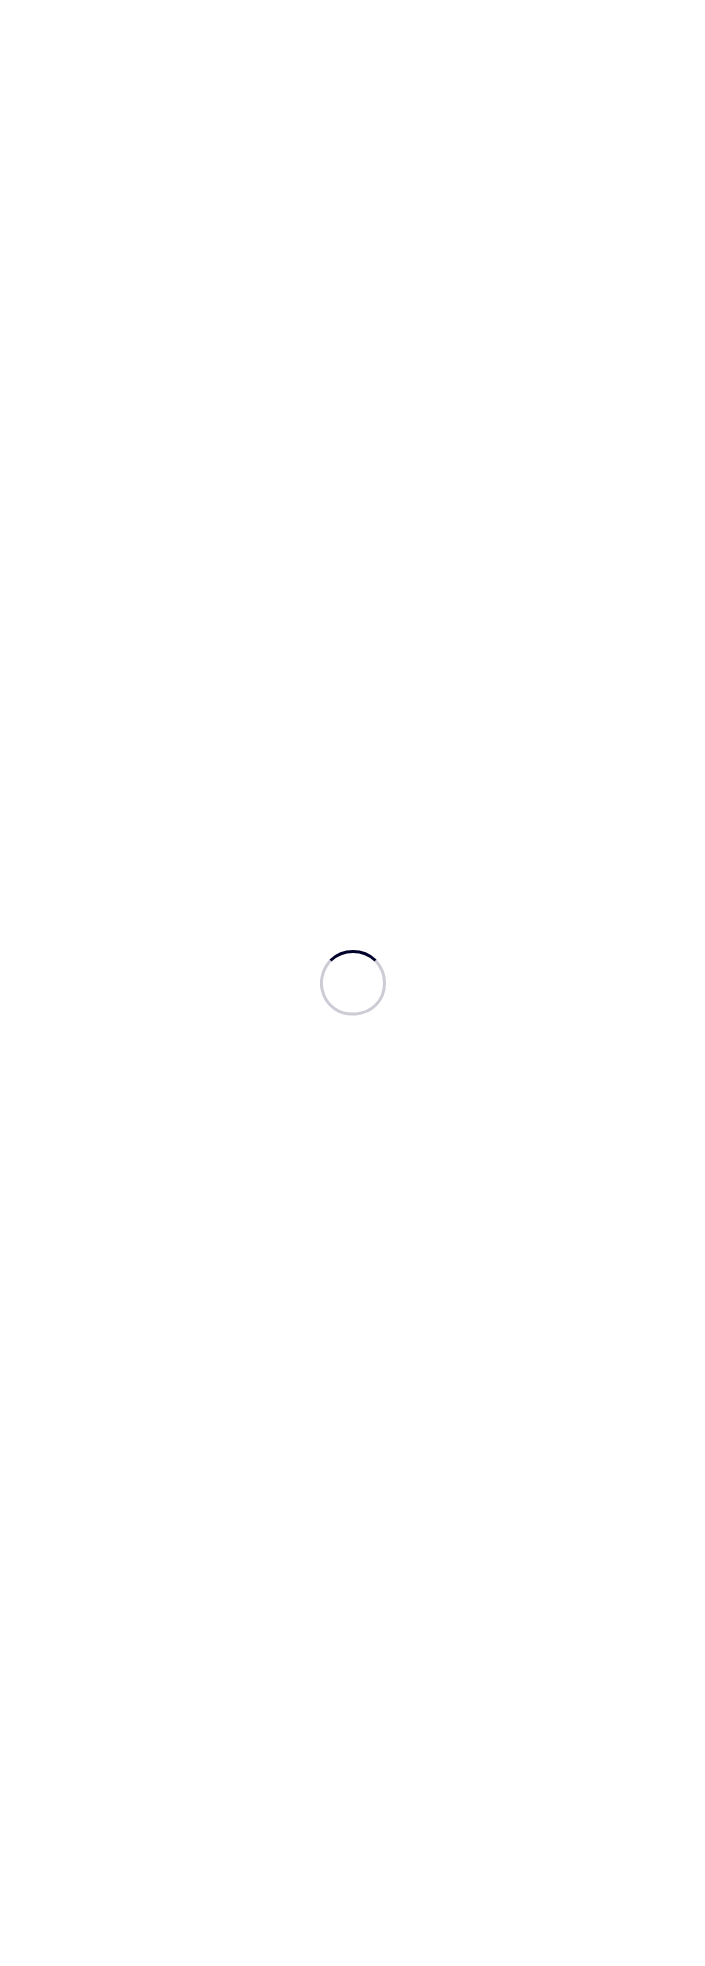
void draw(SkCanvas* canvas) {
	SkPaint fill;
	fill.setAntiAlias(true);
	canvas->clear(0xFFFFFFFF);
	fill.setStyle(SkPaint::kStroke_Style);
	fill.setStrokeWidth(3);
	fill.setColor(0xFF01022B);
	canvas->drawPath(SkPathBuilder().moveTo(330.5f, 960.5f).cubicTo(343, 948.5f, 363, 948.5f, 375.5f, 960.5f).detach(), fill);
	fill.setColor(0x3301022B);
	canvas->drawPath(SkPathBuilder().moveTo(375.5f, 960.5f).cubicTo(381, 966.5f, 384.5f, 974.5f, 384.5f, 983).cubicTo(384.5f, 1020.5f, 329.5f, 1026, 322, 989).cubicTo(320, 979, 323.5f, 968, 330.5f, 960.5f).detach(), fill);
}
